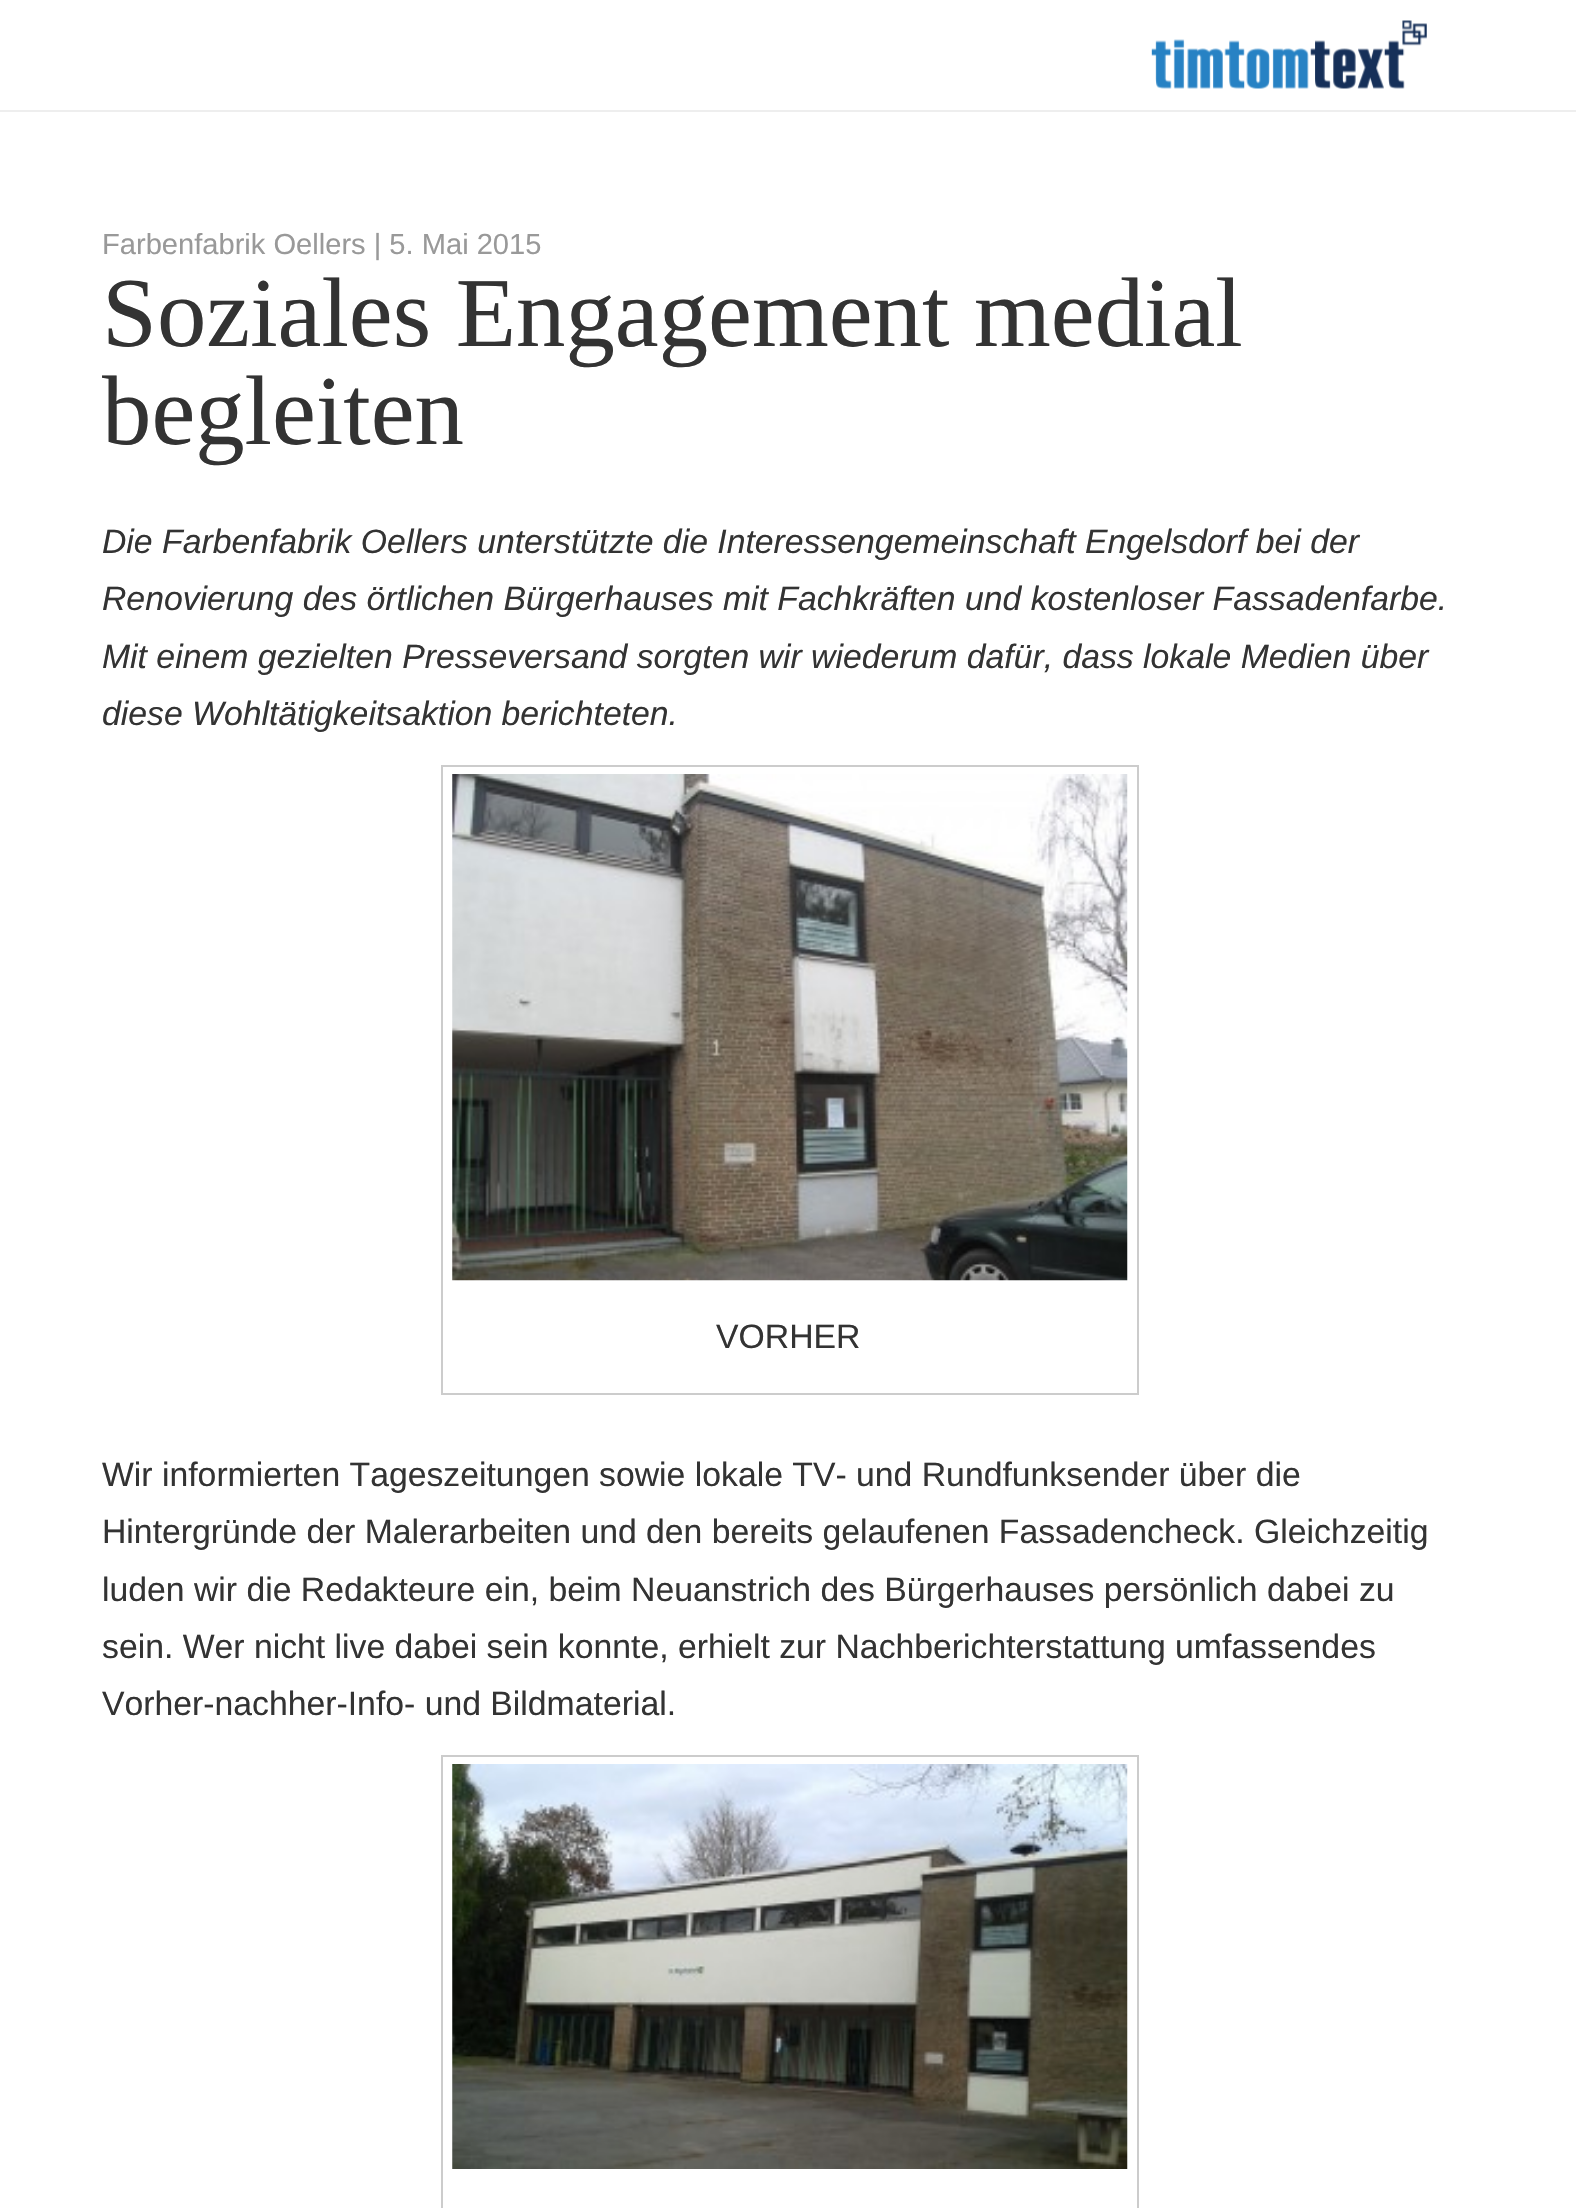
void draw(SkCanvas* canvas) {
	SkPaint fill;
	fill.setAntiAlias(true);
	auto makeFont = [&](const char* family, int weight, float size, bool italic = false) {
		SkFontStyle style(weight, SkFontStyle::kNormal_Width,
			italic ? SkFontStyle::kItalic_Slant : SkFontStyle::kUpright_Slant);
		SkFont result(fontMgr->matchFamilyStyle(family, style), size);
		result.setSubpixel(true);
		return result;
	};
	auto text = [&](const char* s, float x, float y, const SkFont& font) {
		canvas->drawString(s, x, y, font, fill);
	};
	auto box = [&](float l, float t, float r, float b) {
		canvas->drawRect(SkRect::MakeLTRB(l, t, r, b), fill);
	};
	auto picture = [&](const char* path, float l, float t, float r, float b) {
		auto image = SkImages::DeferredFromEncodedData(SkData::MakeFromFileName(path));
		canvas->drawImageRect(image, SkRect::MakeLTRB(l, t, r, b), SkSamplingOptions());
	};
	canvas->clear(0xFFFFFFFF);
	fill.setColor(0xFFEEEEEE);
	box(0, 110, 1576, 112);
	picture("image0.png", 1151, 20, 1427, 89);
	fill.setStyle(SkPaint::kStroke_Style);
	fill.setStrokeWidth(2);
	fill.setColor(0xFFCCCCCC);
	canvas->drawRect(SkRect::MakeLTRB(442, 766, 1138, 1394), fill);
	picture("image1.png", 452, 774, 1128, 1281);
	canvas->drawRect(SkRect::MakeLTRB(442, 1756, 1138, 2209), fill);
	picture("image2.png", 452, 1764, 1128, 2169);
	auto font1 = makeFont("Liberation Sans", 400, 29.1f);
	fill.setStyle(SkPaint::kFill_Style);
	fill.setColor(0xFF999999);
	text("Farbenfabrik Oellers | 5. Mai 2015", 102, 254, font1);
	auto font2 = makeFont("Liberation Serif", 400, 98.75f);
	fill.setColor(0xFF333333);
	text("Soziales Engagement medial", 102, 346, font2);
	text("begleiten", 102, 444, font2);
	auto font3 = makeFont("Liberation Sans", 400, 33.75f, true);
	text("Die Farbenfabrik Oellers unterstützte die Interessengemeinschaft Engelsdorf bei der", 102, 553, font3);
	text("Renovierung des örtlichen Bürgerhauses mit Fachkräften und kostenloser Fassadenfarbe.", 102, 610, font3);
	text("Mit einem gezielten Presseversand sorgten wir wiederum dafür, dass lokale Medien über", 102, 668, font3);
	text("diese Wohltätigkeitsaktion berichteten.", 102, 725, font3);
	auto font4 = makeFont("Liberation Sans", 400, 33.75f);
	text("VORHER", 716, 1348, font4);
	text("Wir informierten Tageszeitungen sowie lokale TV- und Rundfunksender über die", 102, 1486, font4);
	text("Hintergründe der Malerarbeiten und den bereits gelaufenen Fassadencheck. Gleichzeitig", 102, 1543, font4);
	text("luden wir die Redakteure ein, beim Neuanstrich des Bürgerhauses persönlich dabei zu", 102, 1601, font4);
	text("sein. Wer nicht live dabei sein konnte, erhielt zur Nachberichterstattung umfassendes", 102, 1658, font4);
	text("Vorher-nachher-Info- und Bildmaterial.", 102, 1715, font4);
}
